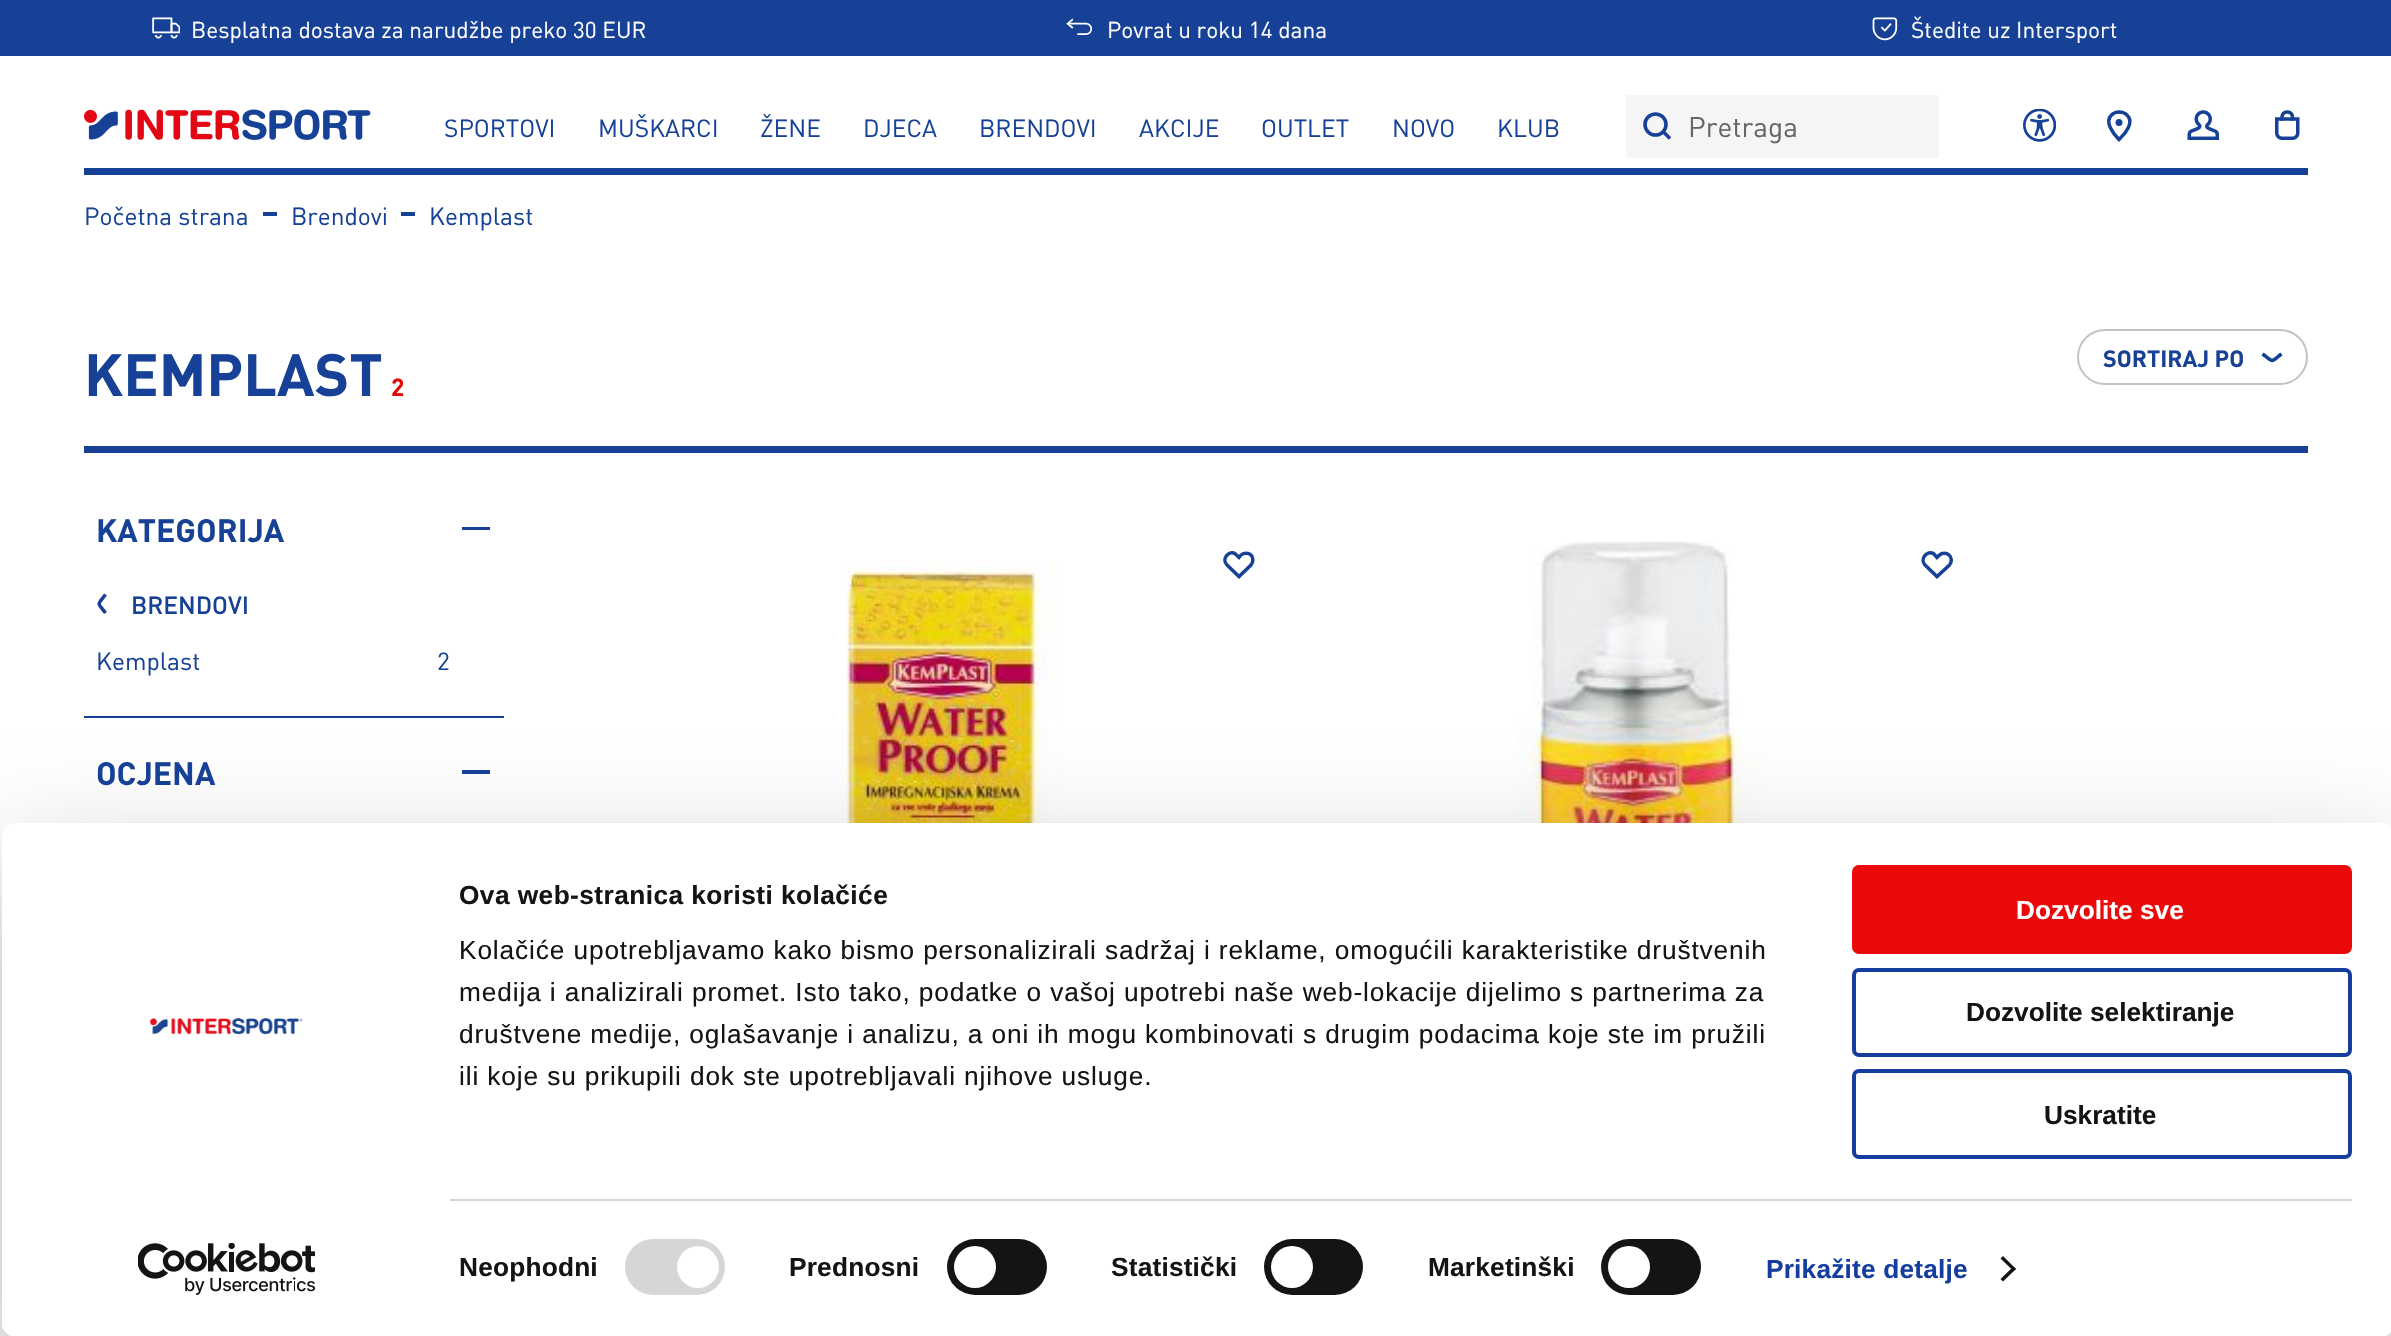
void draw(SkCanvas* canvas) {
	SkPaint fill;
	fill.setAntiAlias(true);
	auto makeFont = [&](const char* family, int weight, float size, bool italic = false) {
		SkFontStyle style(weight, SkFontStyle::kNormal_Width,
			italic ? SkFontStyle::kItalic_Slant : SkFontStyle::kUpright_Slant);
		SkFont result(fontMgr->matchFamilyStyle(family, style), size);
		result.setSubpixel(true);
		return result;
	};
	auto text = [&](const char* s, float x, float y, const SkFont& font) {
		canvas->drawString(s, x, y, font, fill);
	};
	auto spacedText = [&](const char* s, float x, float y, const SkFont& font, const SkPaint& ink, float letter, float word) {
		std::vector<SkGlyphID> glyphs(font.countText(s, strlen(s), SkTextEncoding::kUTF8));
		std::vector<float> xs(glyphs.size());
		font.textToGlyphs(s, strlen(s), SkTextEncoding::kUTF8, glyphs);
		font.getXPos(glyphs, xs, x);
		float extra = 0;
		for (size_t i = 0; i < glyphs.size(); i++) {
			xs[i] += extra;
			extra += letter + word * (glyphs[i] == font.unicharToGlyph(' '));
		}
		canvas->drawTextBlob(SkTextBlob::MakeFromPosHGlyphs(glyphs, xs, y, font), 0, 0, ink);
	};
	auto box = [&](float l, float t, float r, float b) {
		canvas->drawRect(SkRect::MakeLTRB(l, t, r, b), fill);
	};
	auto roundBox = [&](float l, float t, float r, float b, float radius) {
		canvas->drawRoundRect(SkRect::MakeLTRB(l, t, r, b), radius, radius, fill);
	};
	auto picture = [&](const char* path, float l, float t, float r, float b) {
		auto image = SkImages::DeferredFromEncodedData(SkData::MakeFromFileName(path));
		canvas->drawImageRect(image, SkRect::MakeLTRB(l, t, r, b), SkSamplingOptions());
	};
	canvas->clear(0xFFFFFFFF);
	fill.setColor(0xFF164196);
	box(0, 0, 2391, 56);
	picture("image0.png", 152, 17, 180, 39);
	picture("image1.png", 1066, 18, 1092, 35);
	picture("image2.png", 1872, 17, 1898, 41);
	box(84, 168, 2308, 175);
	picture("image3.png", 84, 109, 371, 140);
	fill.setColor(0xFFF5F5F5);
	box(1626, 95, 1939, 158);
	fill.setStyle(SkPaint::kStroke_Style);
	fill.setStrokeWidth(3.6f);
	fill.setColor(0xFF164196);
	canvas->drawCircle(1655.5f, 124.5f, 10.5f, fill);
	canvas->drawPath(SkPathBuilder().moveTo(1663, 131.5f).lineTo(1670, 138.5f).detach(), fill);
	picture("image4.png", 2023, 109, 2056, 142);
	fill.setStrokeWidth(3.5f);
	canvas->drawPath(SkPathBuilder().moveTo(2120, 138.5f).lineTo(2119, 139.5f).cubicTo(2113.5f, 134, 2104, 122, 2111.5f, 115).cubicTo(2113.5f, 113, 2116.5f, 112, 2119, 112).cubicTo(2122, 112, 2125, 113, 2127, 115).cubicTo(2134.5f, 122, 2125.5f, 133.5f, 2120, 138.5f).close().detach(), fill);
	fill.setStyle(SkPaint::kFill_Style);
	canvas->drawCircle(2119, 122.5f, 3.5f, fill);
	picture("image5.png", 2187, 110, 2219, 140);
	picture("image6.png", 2275, 110, 2300, 140);
	box(263, 212, 277, 216);
	box(401, 212, 415, 216);
	fill.setStyle(SkPaint::kStroke_Style);
	fill.setStrokeWidth(2);
	fill.setColor(0xFFC2C2C2);
	canvas->drawRoundRect(SkRect::MakeLTRB(2078, 330, 2307, 384), 27, 27, fill);
	fill.setStrokeWidth(3.5f);
	fill.setColor(0xFF164196);
	canvas->drawPath(SkPathBuilder().moveTo(2262.5f, 354).cubicTo(2274.5f, 362.5f, 2270, 362.5f, 2281.5f, 354).detach(), fill);
	fill.setStyle(SkPaint::kFill_Style);
	box(84, 446, 2308, 453);
	box(84, 716, 504, 718);
	box(462, 527, 490, 530);
	fill.setStyle(SkPaint::kStroke_Style);
	canvas->drawPath(SkPathBuilder().moveTo(105.5f, 613).cubicTo(97, 601.5f, 97, 606, 105.5f, 594.5f).detach(), fill);
	fill.setStyle(SkPaint::kFill_Style);
	box(462, 770, 490, 774);
	picture("image7.png", 845, 561, 1063, 823);
	fill.setStyle(SkPaint::kStroke_Style);
	canvas->drawPath(SkPathBuilder().moveTo(1227, 565).lineTo(1239, 576.5f).lineTo(1251, 565).cubicTo(1253.5f, 562, 1253.5f, 557.5f, 1251, 555).cubicTo(1248.5f, 552.5f, 1244, 552.5f, 1241, 555).lineTo(1239, 557.5f).lineTo(1235.5f, 554).cubicTo(1229, 549.5f, 1221, 559, 1227, 565).close().detach(), fill);
	picture("image8.png", 1516, 541, 1762, 823);
	canvas->drawPath(SkPathBuilder().moveTo(1925, 565).lineTo(1937, 576.5f).lineTo(1949.5f, 565).cubicTo(1952, 562, 1952, 557.5f, 1949, 555).cubicTo(1946.5f, 552.5f, 1942, 552.5f, 1939.5f, 555).lineTo(1937, 557.5f).lineTo(1934, 554).cubicTo(1927, 549.5f, 1919.5f, 559, 1925, 565).close().detach(), fill);
	canvas->save();
	canvas->clipPath(SkPathBuilder(SkPathFillType::kEvenOdd).moveTo(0, 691).lineTo(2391, 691).lineTo(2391, 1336).lineTo(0, 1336).close().moveTo(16, 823).lineTo(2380, 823).cubicTo(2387.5f, 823, 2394, 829.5f, 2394, 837).lineTo(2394, 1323).cubicTo(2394, 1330.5f, 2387.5f, 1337, 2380, 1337).lineTo(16, 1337).cubicTo(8.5f, 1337, 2, 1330.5f, 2, 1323).lineTo(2, 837).cubicTo(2, 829.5f, 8.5f, 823, 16, 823).close().detach(), true);
	fill.setStyle(SkPaint::kFill_Style);
	fill.setColor(0x4D000000);
	fill.setMaskFilter(SkMaskFilter::MakeBlur(kNormal_SkBlurStyle, 61));
	canvas->drawRoundRect(SkRect::MakeLTRB(2, 875, 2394, 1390), 14, 14, fill);
	fill.setMaskFilter(nullptr);
	canvas->restore();
	fill.setColor(0xFFFFFFFF);
	roundBox(2, 823, 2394, 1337, 14);
	picture("image9.png", 149, 1018, 303, 1035);
	picture("image10.png", 138, 1243, 315, 1295);
	fill.setColor(0xFFD6D6D6);
	box(450, 1199, 2352, 1201);
	roundBox(625, 1239, 725, 1295, 28);
	fill.setColor(0xFFFFFFFF);
	canvas->drawCircle(698, 1267, 21, fill);
	fill.setColor(0xFF141414);
	roundBox(947, 1239, 1047, 1295, 28);
	fill.setColor(0xFFFFFFFF);
	canvas->drawCircle(975, 1267, 21, fill);
	fill.setColor(0xFF141414);
	roundBox(1264, 1239, 1363, 1295, 28);
	fill.setColor(0xFFFFFFFF);
	canvas->drawCircle(1292, 1267, 21, fill);
	fill.setColor(0xFF141414);
	roundBox(1601, 1239, 1701, 1295, 28);
	fill.setColor(0xFFFFFFFF);
	canvas->drawCircle(1629, 1267, 21, fill);
	fill.setColor(0xFF141414);
	canvas->drawPath(SkPathBuilder().moveTo(2003, 1256).lineTo(2016, 1269).lineTo(2013.5f, 1271).lineTo(2000.5f, 1258.5f).close().detach(), fill);
	canvas->drawPath(SkPathBuilder().moveTo(2013.5f, 1266.5f).lineTo(2016, 1269).lineTo(2003, 1281.5f).lineTo(2000.5f, 1279).close().detach(), fill);
	fill.setColor(0xFFEB0A0A);
	canvas->drawRoundRect(SkRect::MakeLTRB(1854, 867, 2350, 952), 5, 5, fill);
	fill.setStyle(SkPaint::kStroke_Style);
	fill.setStrokeWidth(4);
	canvas->drawRoundRect(SkRect::MakeLTRB(1854, 867, 2350, 952), 5, 5, fill);
	fill.setColor(0xFF153DA0);
	canvas->drawRoundRect(SkRect::MakeLTRB(1854, 970, 2350, 1055), 5, 5, fill);
	canvas->drawRoundRect(SkRect::MakeLTRB(1854, 1071, 2350, 1157), 5, 5, fill);
	auto font1 = makeFont("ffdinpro", 400, 22.7f);
	fill.setStyle(SkPaint::kFill_Style);
	fill.setColor(0xFFFFFFFF);
	text("Besplatna dostava za narudžbe preko 30 EUR", 191, 38, font1);
	text("Povrat u roku 14 dana", 1107, 38, font1);
	text("Štedite uz Intersport", 1911, 38, font1);
	auto font2 = makeFont("ffdinpro", 400, 24.5f);
	fill.setColor(0xFF164196);
	text("SPORTOVI", 444, 137, font2);
	text("MUŠKARCI", 598, 137, font2);
	text("ŽENE", 760, 137, font2);
	text("DJECA", 863, 137, font2);
	text("BRENDOVI", 979, 137, font2);
	text("AKCIJE", 1139, 137, font2);
	text("OUTLET", 1261, 137, font2);
	text("NOVO", 1392, 137, font2);
	text("KLUB", 1497, 137, font2);
	auto font3 = makeFont("ffdinpro", 400, 28);
	fill.setColor(0xFF666666);
	text("Pretraga", 1688, 137, font3);
	fill.setColor(0xFF164196);
	text("Početna strana", 84, 225, font2);
	text("Brendovi", 291, 225, font2);
	text("Kemplast", 429, 225, font2);
	auto font4 = makeFont("ffdinpro", 700, 58.75f);
	text("KEMPLAST", 84, 396, font4);
	auto font5 = makeFont("ffdinpro", 700, 24.5f);
	fill.setColor(0xFFE50606);
	text("2", 391, 396, font5);
	auto font6 = makeFont("ffdinpro", 700, 23.25f);
	fill.setColor(0xFF164196);
	text("SORTIRAJ PO", 2103, 367, font6);
	auto font7 = makeFont("ffdinpro", 700, 32);
	text("KATEGORIJA", 96, 542, font7);
	auto font8 = makeFont("ffdinpro", 500, 24.5f);
	text("BRENDOVI", 131, 614, font8);
	text("Kemplast", 96, 670, font2);
	text("2", 437, 670, font2);
	text("OCJENA", 96, 785, font7);
	canvas->save();
	canvas->clipRect(SkRect::MakeLTRB(460, 875, 1801, 1148));
	auto font9 = makeFont("Liberation Sans", 700, 26.25f);
	fill.setColor(0xFF141414);
	spacedText("Ova web-stranica koristi kolačiće", 459, 904, font9, fill, 0.45f, 0);
	canvas->restore();
	auto font10 = makeFont("Liberation Sans", 400, 26.25f);
	spacedText("Kolačiće upotrebljavamo kako bismo personalizirali sadržaj i reklame, omogućili karakteristike društvenih", 459, 959, font10, fill, 0.88f, 0);
	spacedText("medija i analizirali promet. Isto tako, podatke o vašoj upotrebi naše web-lokacije dijelimo s partnerima za", 459, 1001, font10, fill, 0.88f, 0);
	canvas->save();
	canvas->clipRect(SkRect::MakeLTRB(460, 875, 1801, 1148));
	spacedText("društvene medije, oglašavanje i analizu, a oni ih mogu kombinovati s drugim podacima koje ste im pružili", 459, 1043, font10, fill, 0.88f, 0);
	canvas->restore();
	spacedText("ili koje su prikupili dok ste upotrebljavali njihove usluge.", 459, 1085, font10, fill, 0.88f, 0);
	spacedText("Neophodni", 459, 1276, font9, fill, 0.2f, 0);
	spacedText("Prednosni", 789, 1276, font9, fill, 0.2f, 0);
	spacedText("Statistički", 1111, 1276, font9, fill, 0.2f, 0);
	spacedText("Marketinški", 1428, 1276, font9, fill, 0.2f, 0);
	fill.setColor(0xFF153DA0);
	spacedText("Prikažite detalje", 1766, 1278, font9, fill, 0.2f, 0);
	fill.setColor(0xFFFFFFFF);
	text("Dozvolite sve", 2016, 919, font9);
	fill.setColor(0xFF141414);
	text("Dozvolite selektiranje", 1966, 1021, font9);
	text("Uskratite", 2044, 1124, font9);
}
